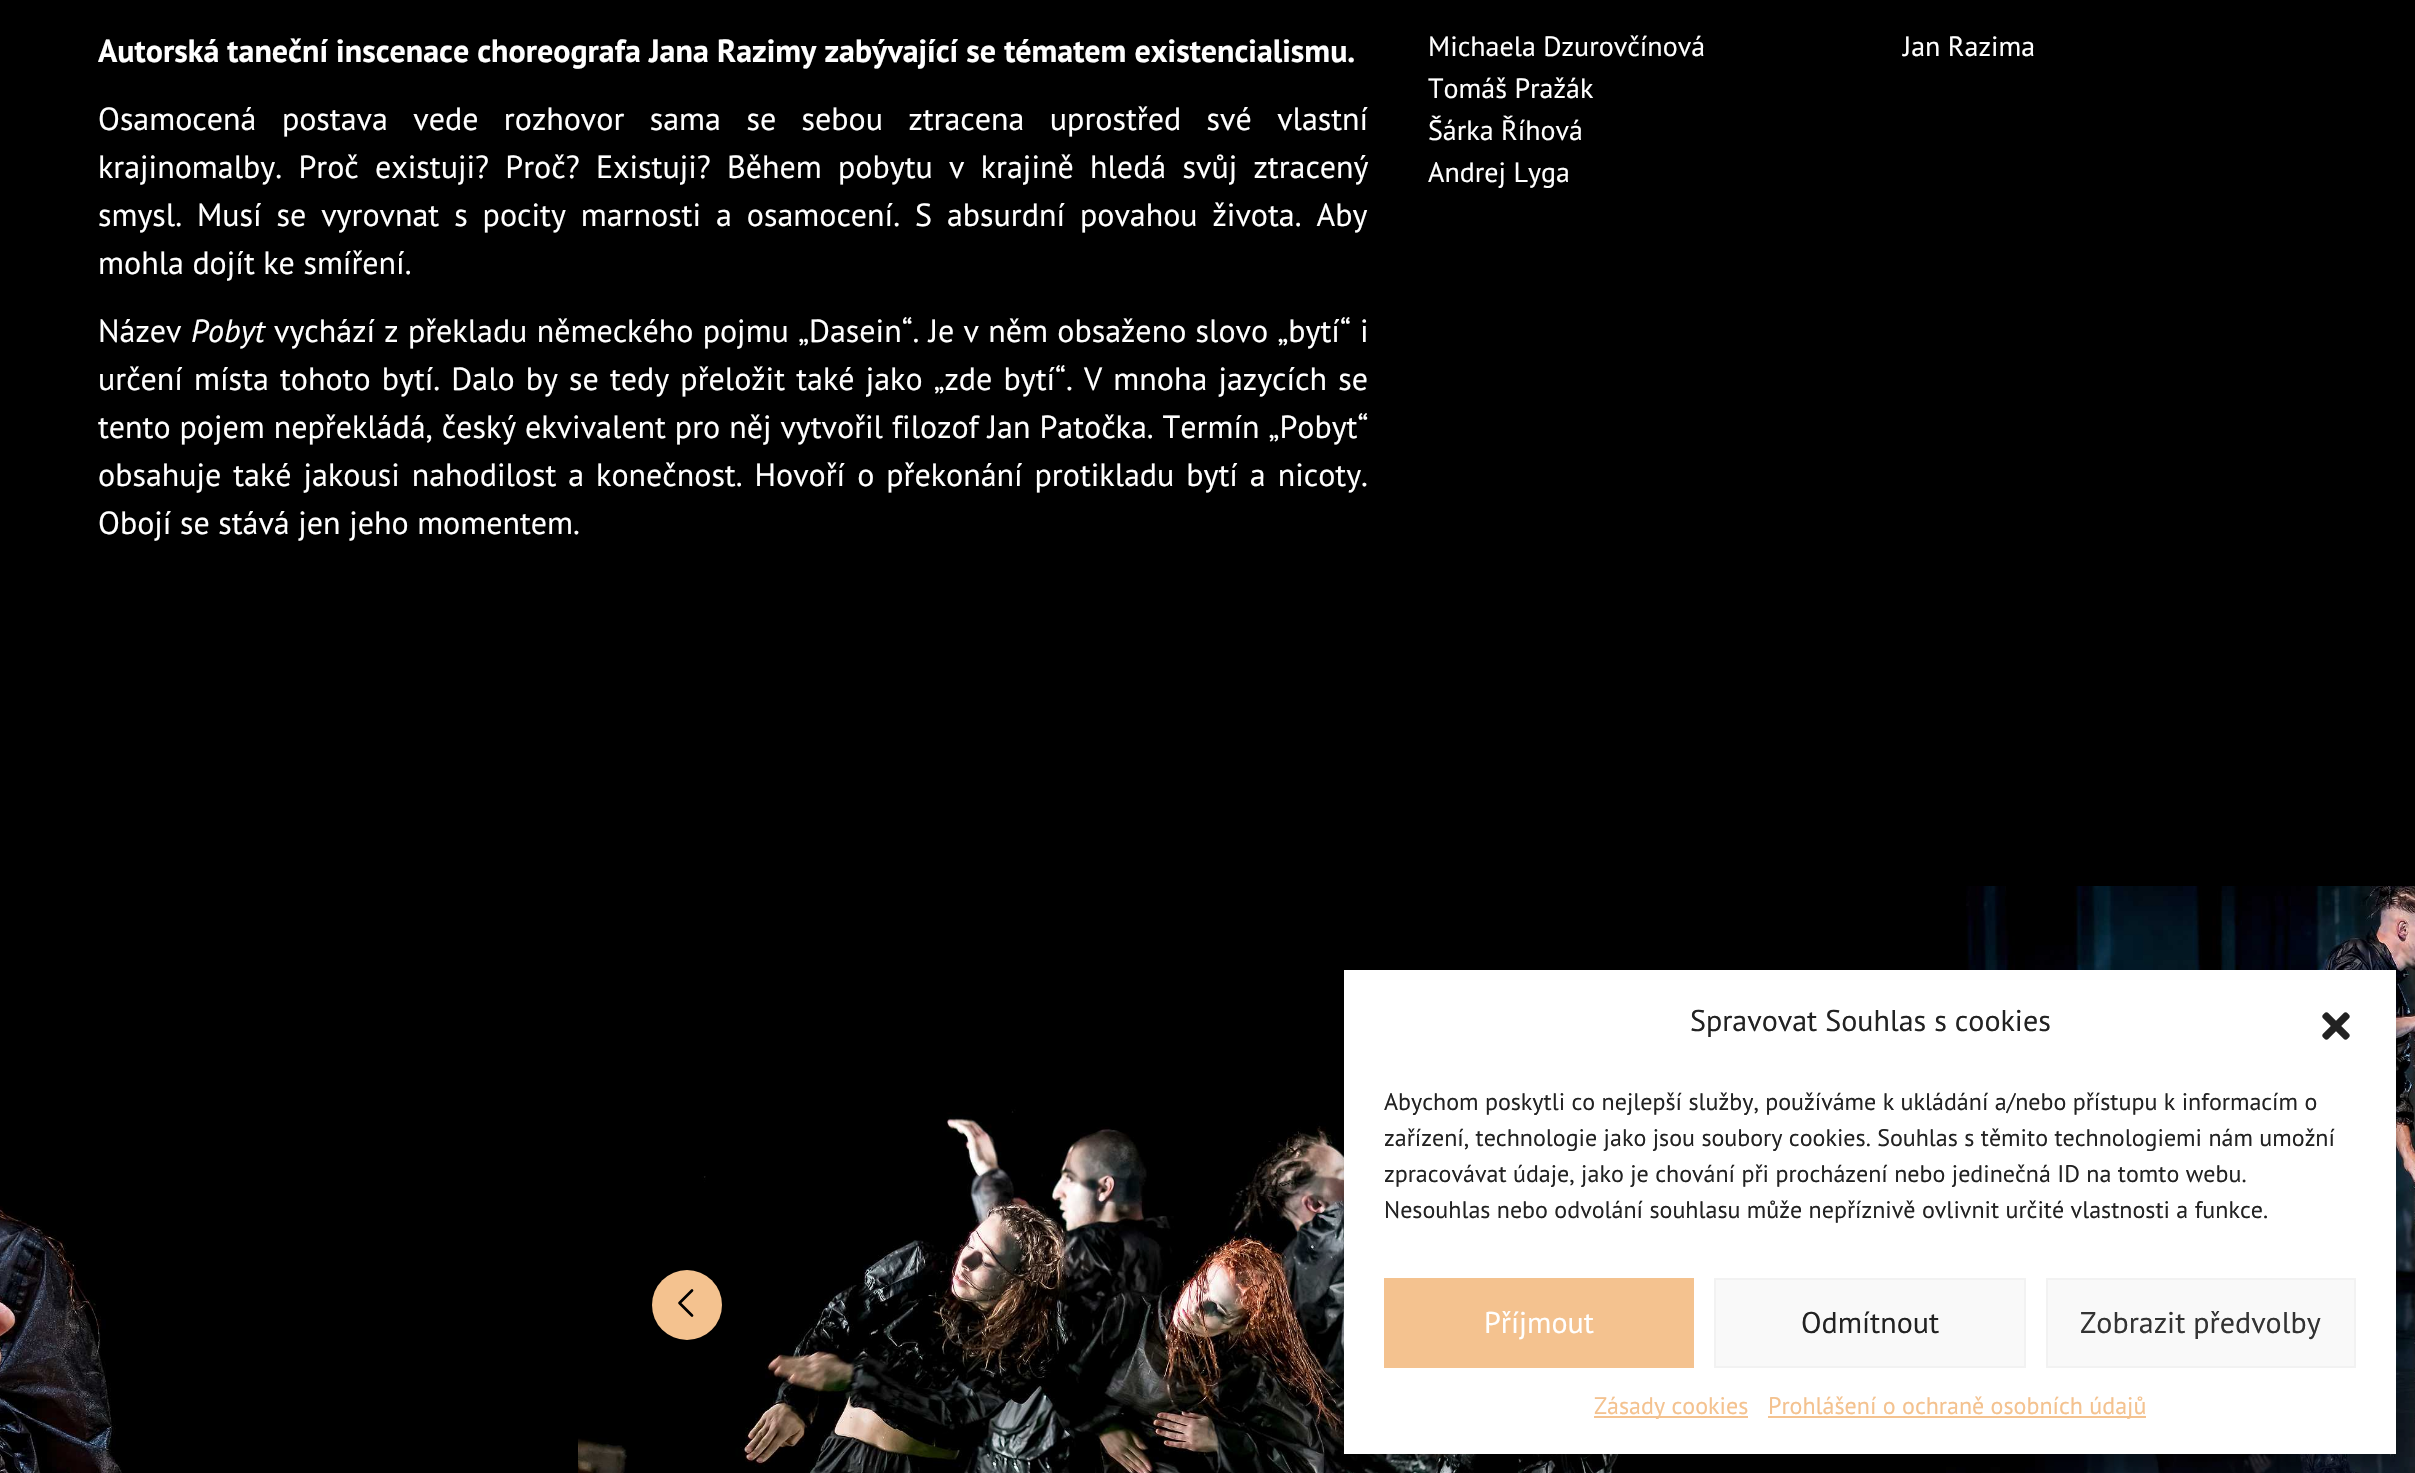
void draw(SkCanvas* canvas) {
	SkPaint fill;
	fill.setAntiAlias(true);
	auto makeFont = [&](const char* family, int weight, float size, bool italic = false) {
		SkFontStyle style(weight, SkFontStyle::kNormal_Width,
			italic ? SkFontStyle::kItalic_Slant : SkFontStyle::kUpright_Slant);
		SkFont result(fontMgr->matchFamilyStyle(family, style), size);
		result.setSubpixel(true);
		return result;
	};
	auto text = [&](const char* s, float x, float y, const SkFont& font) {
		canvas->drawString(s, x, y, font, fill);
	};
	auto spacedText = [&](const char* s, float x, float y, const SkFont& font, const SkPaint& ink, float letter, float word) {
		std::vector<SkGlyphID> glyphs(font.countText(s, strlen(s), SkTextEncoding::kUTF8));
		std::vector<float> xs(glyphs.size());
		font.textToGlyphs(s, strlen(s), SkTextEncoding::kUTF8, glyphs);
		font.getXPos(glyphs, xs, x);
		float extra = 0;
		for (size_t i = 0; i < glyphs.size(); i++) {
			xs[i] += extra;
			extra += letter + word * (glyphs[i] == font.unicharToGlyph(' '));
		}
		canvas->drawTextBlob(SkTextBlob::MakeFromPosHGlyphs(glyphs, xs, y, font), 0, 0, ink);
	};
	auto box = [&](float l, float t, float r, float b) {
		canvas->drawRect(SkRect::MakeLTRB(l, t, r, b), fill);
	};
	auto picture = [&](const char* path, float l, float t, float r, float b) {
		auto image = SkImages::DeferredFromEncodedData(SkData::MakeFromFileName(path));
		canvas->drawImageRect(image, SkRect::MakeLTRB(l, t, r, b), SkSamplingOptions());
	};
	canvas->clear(0xFF000000);
	picture("image0.png", 0, 1206, 122, 1473);
	picture("image1.png", 578, 1062, 1671, 1473);
	picture("image2.png", 1946, 886, 2415, 1473);
	fill.setColor(0xFFF4C28F);
	canvas->drawCircle(687, 1305, 35, fill);
	fill.setStyle(SkPaint::kStroke_Style);
	fill.setStrokeWidth(2.7f);
	fill.setStrokeCap(SkPaint::kRound_Cap);
	fill.setStrokeJoin(SkPaint::kRound_Join);
	fill.setColor(0xFF000000);
	canvas->drawPath(SkPathBuilder().moveTo(692, 1290.5f).lineTo(679.5f, 1303).lineTo(692, 1315.5f).detach(), fill);
	fill.setStyle(SkPaint::kFill_Style);
	fill.setColor(0x3B000000);
	fill.setMaskFilter(SkMaskFilter::MakeBlur(kNormal_SkBlurStyle, 6));
	canvas->drawRect(SkRect::MakeLTRB(1344, 982, 2396, 1466), fill);
	fill.setMaskFilter(nullptr);
	fill.setColor(0x30000000);
	fill.setMaskFilter(SkMaskFilter::MakeBlur(kNormal_SkBlurStyle, 20));
	canvas->drawRect(SkRect::MakeLTRB(1344, 990, 2396, 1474), fill);
	fill.setMaskFilter(nullptr);
	fill.setColor(0xFFFFFFFF);
	box(1344, 970, 2396, 1454);
	picture("image3.png", 2322, 1012, 2350, 1040);
	fill.setColor(0xFFF4C28F);
	box(1384, 1278, 1694, 1368);
	fill.setColor(0xFFF9F9F9);
	canvas->drawRect(SkRect::MakeLTRB(1715, 1279, 2025, 1367), fill);
	fill.setStyle(SkPaint::kStroke_Style);
	fill.setStrokeWidth(2);
	fill.setStrokeCap(SkPaint::kButt_Cap);
	fill.setStrokeJoin(SkPaint::kMiter_Join);
	fill.setColor(0xFFF2F2F2);
	canvas->drawRect(SkRect::MakeLTRB(1715, 1279, 2025, 1367), fill);
	fill.setStyle(SkPaint::kFill_Style);
	fill.setColor(0xFFF9F9F9);
	canvas->drawRect(SkRect::MakeLTRB(2047, 1279, 2355, 1367), fill);
	fill.setStyle(SkPaint::kStroke_Style);
	fill.setColor(0xFFF2F2F2);
	canvas->drawRect(SkRect::MakeLTRB(2047, 1279, 2355, 1367), fill);
	fill.setStyle(SkPaint::kFill_Style);
	fill.setColor(0xFFF4C28F);
	box(1594, 1416, 1748, 1418);
	box(1768, 1416, 2146, 1418);
	auto font1 = makeFont("PT Sans", 700, 32);
	fill.setColor(0xFFFFFFFF);
	text("Autorská taneční inscenace choreografa Jana Razimy zabývající se tématem existencialismu.", 98, 62, font1);
	auto font2 = makeFont("PT Sans", 400, 32);
	spacedText("Osamocená postava vede rozhovor sama se sebou ztracena uprostřed své vlastní", 98, 130, font2, fill, 0, 16.9f);
	spacedText("krajinomalby. Proč existuji? Proč? Existuji? Během pobytu v krajině hledá svůj ztracený", 98, 178, font2, fill, 0, 7.75f);
	spacedText("smysl. Musí se vyrovnat s pocity marnosti a osamocení. S absurdní povahou života. Aby", 98, 226, font2, fill, 0, 6.4f);
	text("mohla dojít ke smíření.", 98, 274, font2);
	text("Název", 98, 342, font2);
	auto font3 = makeFont("PT Sans", 400, 32, true);
	text("Pobyt", 191, 342, font3);
	spacedText("vychází z překladu německého pojmu „Dasein“. Je v něm obsaženo slovo „bytí“ i", 274, 342, font2, fill, 0, 0.75f);
	spacedText("určení místa tohoto bytí. Dalo by se tedy přeložit také jako „zde bytí“. V mnoha jazycích se", 98, 390, font2, fill, 0, 2.6f);
	spacedText("tento pojem nepřekládá, český ekvivalent pro něj vytvořil filozof Jan Patočka. Termín „Pobyt“", 98, 438, font2, fill, 0, 0.4f);
	spacedText("obsahuje také jakousi nahodilost a konečnost. Hovoří o překonání protikladu bytí a nicoty.", 98, 486, font2, fill, 0, 3.4f);
	text("Obojí se stává jen jeho momentem.", 98, 534, font2);
	auto font4 = makeFont("PT Sans", 400, 28);
	text("Michaela Dzurovčínová", 1428, 56, font4);
	text("Tomáš Pražák", 1428, 98, font4);
	text("Šárka Říhová", 1428, 140, font4);
	text("Andrej Lyga", 1428, 182, font4);
	text("Jan Razima", 1903, 56, font4);
	auto font5 = makeFont("PT Sans", 400, 30);
	fill.setColor(0xFF222222);
	text("Spravovat Souhlas s cookies", 1690, 1031, font5);
	auto font6 = makeFont("PT Sans", 400, 24);
	text("Abychom poskytli co nejlepší služby, používáme k ukládání a/nebo přístupu k informacím o", 1384, 1110, font6);
	text("zařízení, technologie jako jsou soubory cookies. Souhlas s těmito technologiemi nám umožní", 1384, 1146, font6);
	text("zpracovávat údaje, jako je chování při procházení nebo jedinečná ID na tomto webu.", 1384, 1182, font6);
	text("Nesouhlas nebo odvolání souhlasu může nepříznivě ovlivnit určité vlastnosti a funkce.", 1384, 1218, font6);
	fill.setColor(0xFFFFFFFF);
	text("Příjmout", 1484, 1333, font5);
	fill.setColor(0xFF222222);
	text("Odmítnout", 1801, 1333, font5);
	fill.setColor(0xFF333333);
	text("Zobrazit předvolby", 2080, 1333, font5);
	fill.setColor(0xFFF4C28F);
	text("Zásady cookies", 1594, 1414, font6);
	text("Prohlášení o ochraně osobních údajů", 1768, 1414, font6);
}
